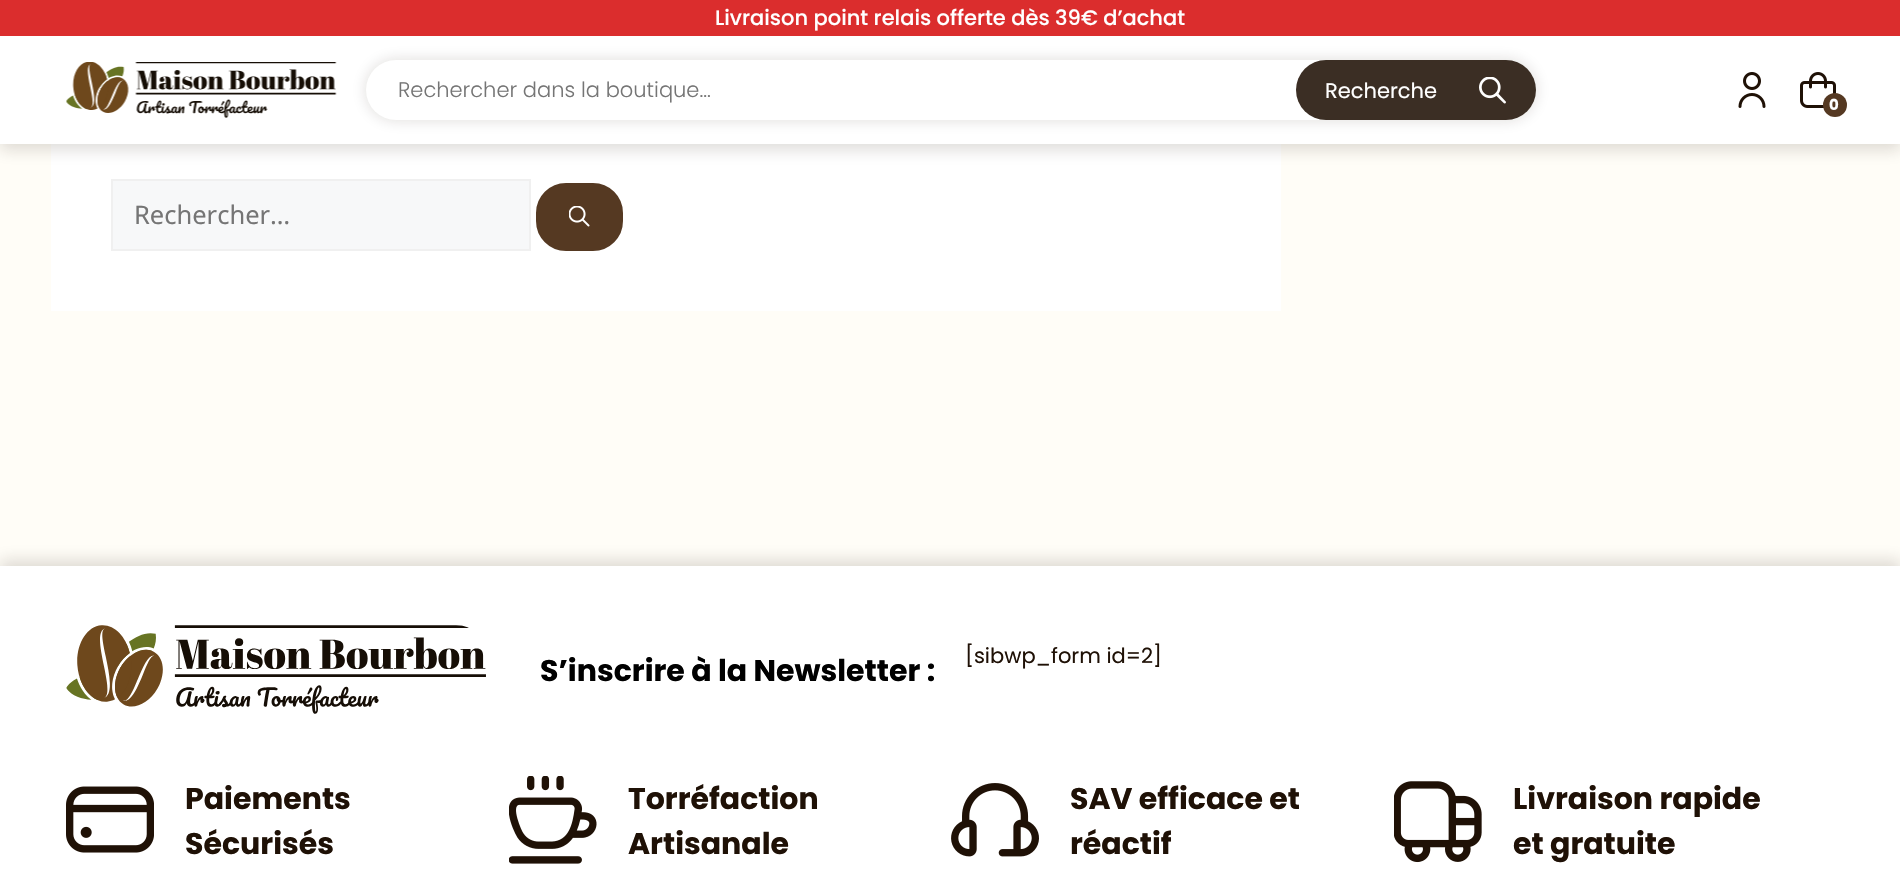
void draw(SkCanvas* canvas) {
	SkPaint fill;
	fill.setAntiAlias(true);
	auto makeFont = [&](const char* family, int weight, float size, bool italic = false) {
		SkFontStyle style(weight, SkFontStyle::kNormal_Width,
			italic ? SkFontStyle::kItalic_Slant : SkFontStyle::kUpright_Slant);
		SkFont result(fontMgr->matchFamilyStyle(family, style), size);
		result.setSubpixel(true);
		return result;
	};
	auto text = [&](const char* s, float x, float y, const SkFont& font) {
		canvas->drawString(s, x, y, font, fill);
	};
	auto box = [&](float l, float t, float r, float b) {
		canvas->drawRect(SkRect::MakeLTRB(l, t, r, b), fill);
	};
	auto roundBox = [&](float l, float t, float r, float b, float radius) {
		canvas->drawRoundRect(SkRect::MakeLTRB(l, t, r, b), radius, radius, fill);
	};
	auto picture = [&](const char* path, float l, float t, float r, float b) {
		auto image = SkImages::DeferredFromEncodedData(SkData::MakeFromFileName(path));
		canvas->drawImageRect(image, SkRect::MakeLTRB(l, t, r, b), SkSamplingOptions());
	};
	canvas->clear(0xFFFFFDF7);
	fill.setColor(0xFFDB2D2D);
	box(0, 0, 1900, 36);
	fill.setColor(0xFFFFFFFF);
	box(51, 144, 1281, 311);
	fill.setColor(0x261F1106);
	fill.setMaskFilter(SkMaskFilter::MakeBlur(kNormal_SkBlurStyle, 7.5f));
	canvas->drawRect(SkRect::MakeLTRB(0, 66, 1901, 150), fill);
	fill.setMaskFilter(nullptr);
	fill.setColor(0xFFFFFFFF);
	box(0, 36, 1900, 144);
	picture("image0.png", 66, 62, 337, 118);
	fill.setColor(0x261F1106);
	fill.setMaskFilter(SkMaskFilter::MakeBlur(kNormal_SkBlurStyle, 7.5f));
	canvas->drawRoundRect(SkRect::MakeLTRB(366, 60, 1536, 120), 30, 30, fill);
	fill.setMaskFilter(nullptr);
	fill.setColor(0xFFFFFFFF);
	roundBox(366, 60, 1536, 120, 30);
	fill.setColor(0xFF3B2E24);
	roundBox(1296, 60, 1536, 120, 30);
	picture("image1.png", 1479, 77, 1506, 104);
	picture("image2.png", 1738, 72, 1766, 108);
	picture("image3.png", 1800, 72, 1836, 108);
	fill.setColor(0xFF553922);
	canvas->drawCircle(1835, 105, 12, fill);
	fill.setColor(0xFFF7F8F9);
	canvas->drawRect(SkRect::MakeLTRB(112, 180, 530, 250), fill);
	fill.setStyle(SkPaint::kStroke_Style);
	fill.setStrokeWidth(2);
	fill.setColor(0xFFF0F0F0);
	canvas->drawRect(SkRect::MakeLTRB(112, 180, 530, 250), fill);
	fill.setStyle(SkPaint::kFill_Style);
	fill.setColor(0xFF553922);
	canvas->drawRoundRect(SkRect::MakeLTRB(537.5f, 184.5f, 621.5f, 249.5f), 28.5f, 28.5f, fill);
	fill.setStyle(SkPaint::kStroke_Style);
	fill.setStrokeWidth(3);
	canvas->drawRoundRect(SkRect::MakeLTRB(537.5f, 184.5f, 621.5f, 249.5f), 28.5f, 28.5f, fill);
	picture("image4.png", 569, 206, 590, 227);
	fill.setStyle(SkPaint::kFill_Style);
	fill.setColor(0x261F1106);
	fill.setMaskFilter(SkMaskFilter::MakeBlur(kNormal_SkBlurStyle, 7.5f));
	canvas->drawRect(SkRect::MakeLTRB(0, 560, 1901, 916), fill);
	fill.setMaskFilter(nullptr);
	fill.setColor(0xFFFFFFFF);
	box(0, 566, 1900, 893);
	picture("image5.png", 66, 625, 486, 714);
	picture("image6.png", 66, 786, 154, 853);
	picture("image7.png", 509, 776, 597, 864);
	picture("image8.png", 951, 783, 1039, 857);
	picture("image9.png", 1394, 781, 1482, 863);
	auto font1 = makeFont("Poppins", 500, 21);
	text("Livraison point relais offerte dès 39€ d’achat", 715, 25, font1);
	auto font2 = makeFont("Poppins", 300, 21);
	fill.setColor(0xFF757575);
	text("Rechercher dans la boutique...", 398, 97, font2);
	auto font3 = makeFont("Poppins", 400, 21);
	fill.setColor(0xFFFFFFFF);
	text("Recherche", 1325, 98, font3);
	auto font4 = makeFont("Poppins", 700, 15);
	text("0", 1829, 110, font4);
	auto font5 = makeFont("Noto Sans", 400, 25.5f);
	fill.setColor(0xFF757575);
	text("Rechercher…", 134, 224, font5);
	auto font6 = makeFont("Poppins", 700, 30);
	fill.setColor(0xFF000000);
	text("S’inscrire à la Newsletter :", 540, 681, font6);
	fill.setColor(0xFF1F1106);
	text("[sibwp_form id=2]", 965, 663, font3);
	text("Paiements", 185, 809, font6);
	text("Sécurisés", 185, 854, font6);
	text("Torréfaction", 628, 809, font6);
	text("Artisanale", 628, 854, font6);
	text("SAV efficace et", 1070, 809, font6);
	text("réactif", 1070, 854, font6);
	text("Livraison rapide", 1513, 809, font6);
	text("et gratuite", 1513, 854, font6);
}
